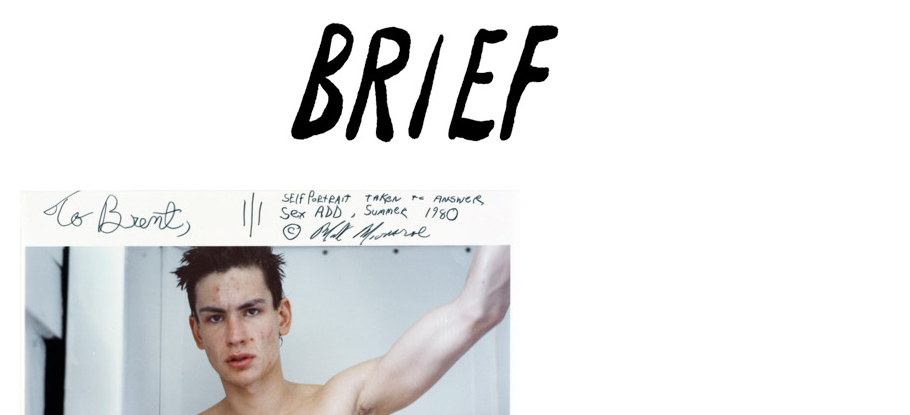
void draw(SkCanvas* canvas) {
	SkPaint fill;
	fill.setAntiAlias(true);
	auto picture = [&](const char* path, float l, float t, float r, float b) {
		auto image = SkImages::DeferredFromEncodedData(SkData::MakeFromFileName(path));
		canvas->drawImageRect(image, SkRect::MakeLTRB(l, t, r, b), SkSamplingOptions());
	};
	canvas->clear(0xFFFFFFFF);
	picture("image0.png", 287, 22, 559, 143);
	picture("image1.png", 20, 190, 520, 415);
}
